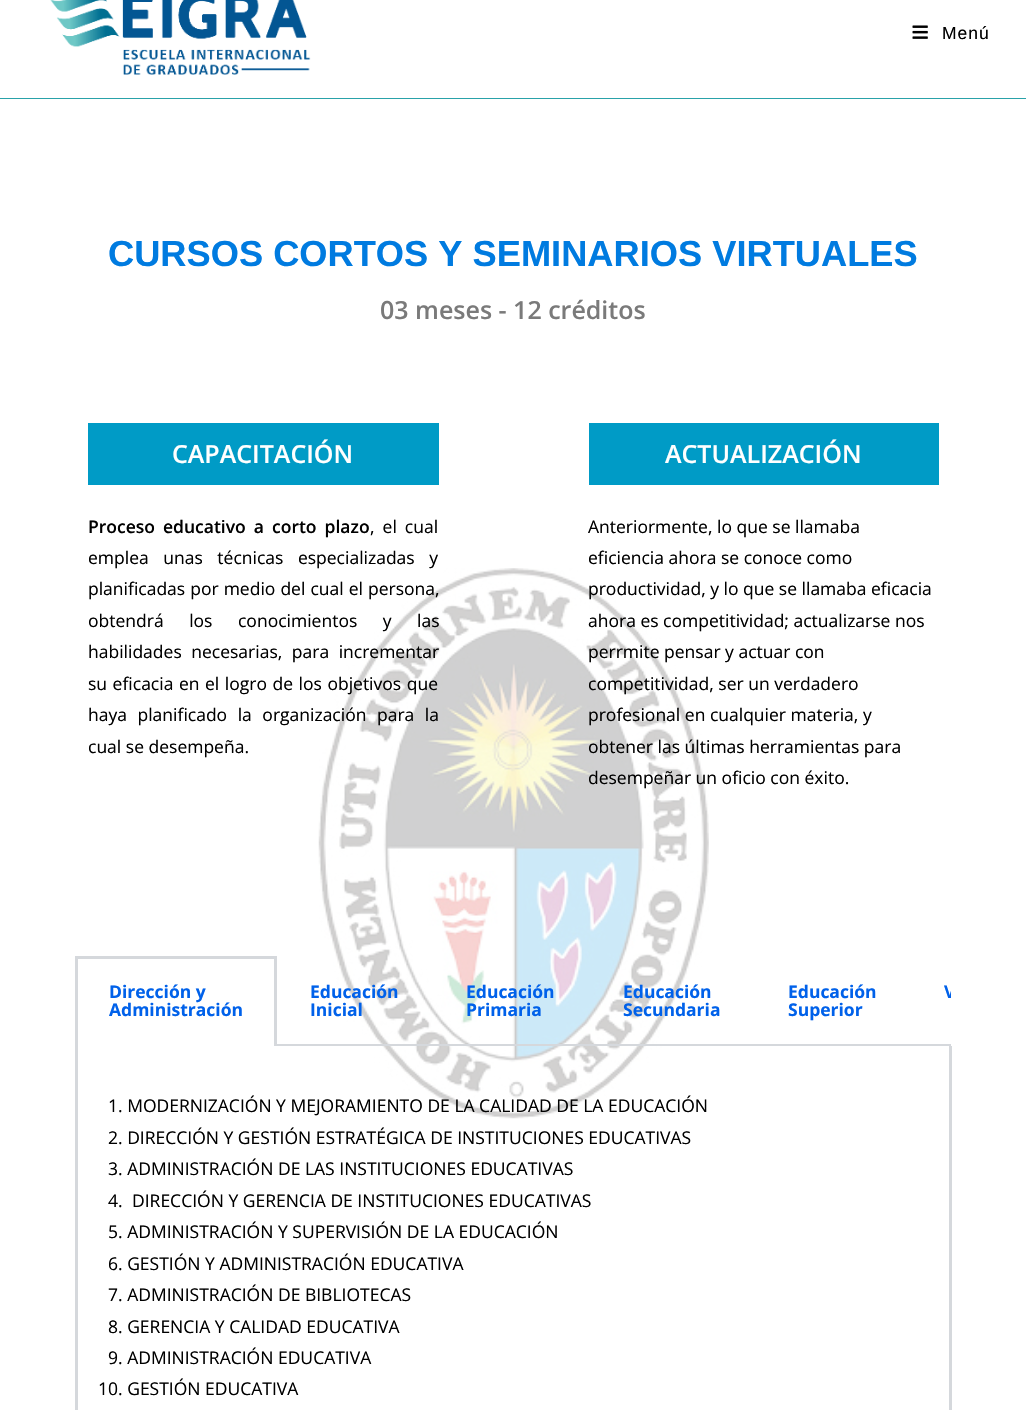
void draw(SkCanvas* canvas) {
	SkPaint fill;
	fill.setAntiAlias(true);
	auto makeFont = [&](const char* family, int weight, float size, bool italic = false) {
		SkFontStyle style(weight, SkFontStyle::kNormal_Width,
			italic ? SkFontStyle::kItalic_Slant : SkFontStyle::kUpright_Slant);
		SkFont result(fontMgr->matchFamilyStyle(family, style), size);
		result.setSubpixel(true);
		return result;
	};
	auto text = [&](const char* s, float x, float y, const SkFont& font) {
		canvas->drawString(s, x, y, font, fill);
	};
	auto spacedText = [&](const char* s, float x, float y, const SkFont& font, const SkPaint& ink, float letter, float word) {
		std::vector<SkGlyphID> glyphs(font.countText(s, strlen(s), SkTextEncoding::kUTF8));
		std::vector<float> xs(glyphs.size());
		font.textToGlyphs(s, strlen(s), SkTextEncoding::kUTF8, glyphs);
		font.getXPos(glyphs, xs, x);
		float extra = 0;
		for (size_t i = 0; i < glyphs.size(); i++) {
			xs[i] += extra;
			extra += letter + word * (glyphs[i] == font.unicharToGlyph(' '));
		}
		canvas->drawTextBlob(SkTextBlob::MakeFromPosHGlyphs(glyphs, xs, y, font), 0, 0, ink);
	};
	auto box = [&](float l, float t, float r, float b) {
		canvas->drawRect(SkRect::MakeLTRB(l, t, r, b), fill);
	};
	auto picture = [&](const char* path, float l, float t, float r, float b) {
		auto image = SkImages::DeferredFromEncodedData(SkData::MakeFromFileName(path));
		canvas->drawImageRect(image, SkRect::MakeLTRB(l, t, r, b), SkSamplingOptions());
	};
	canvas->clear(0xFFFFFFFF);
	fill.setColor(0xFF29A2A9);
	box(0, 98, 1026, 99);
	picture("image0.png", 50, 0, 311, 75);
	picture("image1.png", 912, 25, 928, 39);
	picture("image2.png", 318, 568, 709, 1119);
	fill.setColor(0xFF009BC6);
	box(88, 423, 439, 485);
	box(589, 423, 939, 485);
	fill.setColor(0xFFD5D8DC);
	box(75, 956, 276, 959);
	box(274, 956, 277, 1046);
	box(75, 956, 78, 1046);
	box(274, 1044, 951, 1046);
	box(949, 1046, 952, 1410);
	box(75, 1046, 78, 1410);
	auto font1 = makeFont("Liberation Sans", 400, 17.5f);
	fill.setColor(0xFF000000);
	spacedText("Menú", 942, 39, font1, fill, 1, 0);
	auto font2 = makeFont("Liberation Sans", 700, 36.25f);
	fill.setColor(0xFF007BE0);
	text("CURSOS CORTOS Y SEMINARIOS VIRTUALES", 108, 266, font2);
	auto font3 = makeFont("Open Sans", 600, 25);
	fill.setColor(0xFF7A7A7A);
	text("03 meses - 12 créditos", 380, 319, font3);
	fill.setColor(0xFFFFFFFF);
	text("CAPACITACIÓN", 172, 463, font3);
	auto font4 = makeFont("Open Sans", 600, 17.5f);
	fill.setColor(0xFF000000);
	spacedText("Proceso educativo a corto plazo", 88, 533, font4, fill, 0, 3.5f);
	auto font5 = makeFont("Open Sans", 400, 17.5f);
	spacedText(", el cual", 370, 533, font5, fill, 0, 3.5f);
	spacedText("emplea unas técnicas especializadas y", 88, 564, font5, fill, 0, 10);
	spacedText("planificadas por medio del cual el persona,", 88, 595, font5, fill, 0, 0.5f);
	spacedText("obtendrá los conocimientos y las", 88, 627, font5, fill, 0, 21);
	spacedText("habilidades necesarias, para incrementar", 88, 658, font5, fill, 0, 5);
	spacedText("su eficacia en el logro de los objetivos que", 88, 690, font5, fill, 0, 1);
	spacedText("haya planificado la organización para la", 88, 721, font5, fill, 0, 6);
	text("cual se desempeña.", 88, 753, font5);
	fill.setColor(0xFFFFFFFF);
	text("ACTUALIZACIÓN", 665, 463, font3);
	fill.setColor(0xFF000000);
	text("Anteriormente, lo que se llamaba", 588, 533, font5);
	text("eficiencia ahora se conoce como", 588, 564, font5);
	text("productividad, y lo que se llamaba eficacia", 588, 595, font5);
	text("ahora es competitividad; actualizarse nos", 588, 627, font5);
	text("perrmite pensar y actuar con", 588, 658, font5);
	text("competitividad, ser un verdadero", 588, 690, font5);
	text("profesional en cualquier materia, y", 588, 721, font5);
	text("obtener las últimas herramientas para", 588, 753, font5);
	text("desempeñar un oficio con éxito.", 588, 784, font5);
	auto font6 = makeFont("Open Sans", 700, 17.5f);
	fill.setColor(0xFF0061EA);
	text("Dirección y", 109, 998, font6);
	text("Administración", 109, 1016, font6);
	text("Educación", 310, 998, font6);
	text("Inicial", 310, 1016, font6);
	text("Educación", 466, 998, font6);
	text("Primaria", 466, 1016, font6);
	text("Educación", 623, 998, font6);
	text("Secundaria", 623, 1016, font6);
	text("Educación", 788, 998, font6);
	text("Superior", 788, 1016, font6);
	canvas->save();
	canvas->clipRect(SkRect::MakeLTRB(75, 956, 951, 1046));
	text("V", 944, 998, font6);
	canvas->restore();
	fill.setColor(0xFF000000);
	text("1. MODERNIZACIÓN Y MEJORAMIENTO DE LA CALIDAD DE LA EDUCACIÓN", 108, 1112, font5);
	text("2. DIRECCIÓN Y GESTIÓN ESTRATÉGICA DE INSTITUCIONES EDUCATIVAS", 108, 1144, font5);
	text("3. ADMINISTRACIÓN DE LAS INSTITUCIONES EDUCATIVAS", 108, 1175, font5);
	text("4.", 108, 1207, font5);
	text("DIRECCIÓN Y GERENCIA DE INSTITUCIONES EDUCATIVAS", 132, 1207, font5);
	text("5. ADMINISTRACIÓN Y SUPERVISIÓN DE LA EDUCACIÓN", 108, 1238, font5);
	text("6. GESTIÓN Y ADMINISTRACIÓN EDUCATIVA", 108, 1270, font5);
	text("7. ADMINISTRACIÓN DE BIBLIOTECAS", 108, 1301, font5);
	text("8. GERENCIA Y CALIDAD EDUCATIVA", 108, 1333, font5);
	text("9. ADMINISTRACIÓN EDUCATIVA", 108, 1364, font5);
	text("10. GESTIÓN EDUCATIVA", 98, 1395, font5);
}
